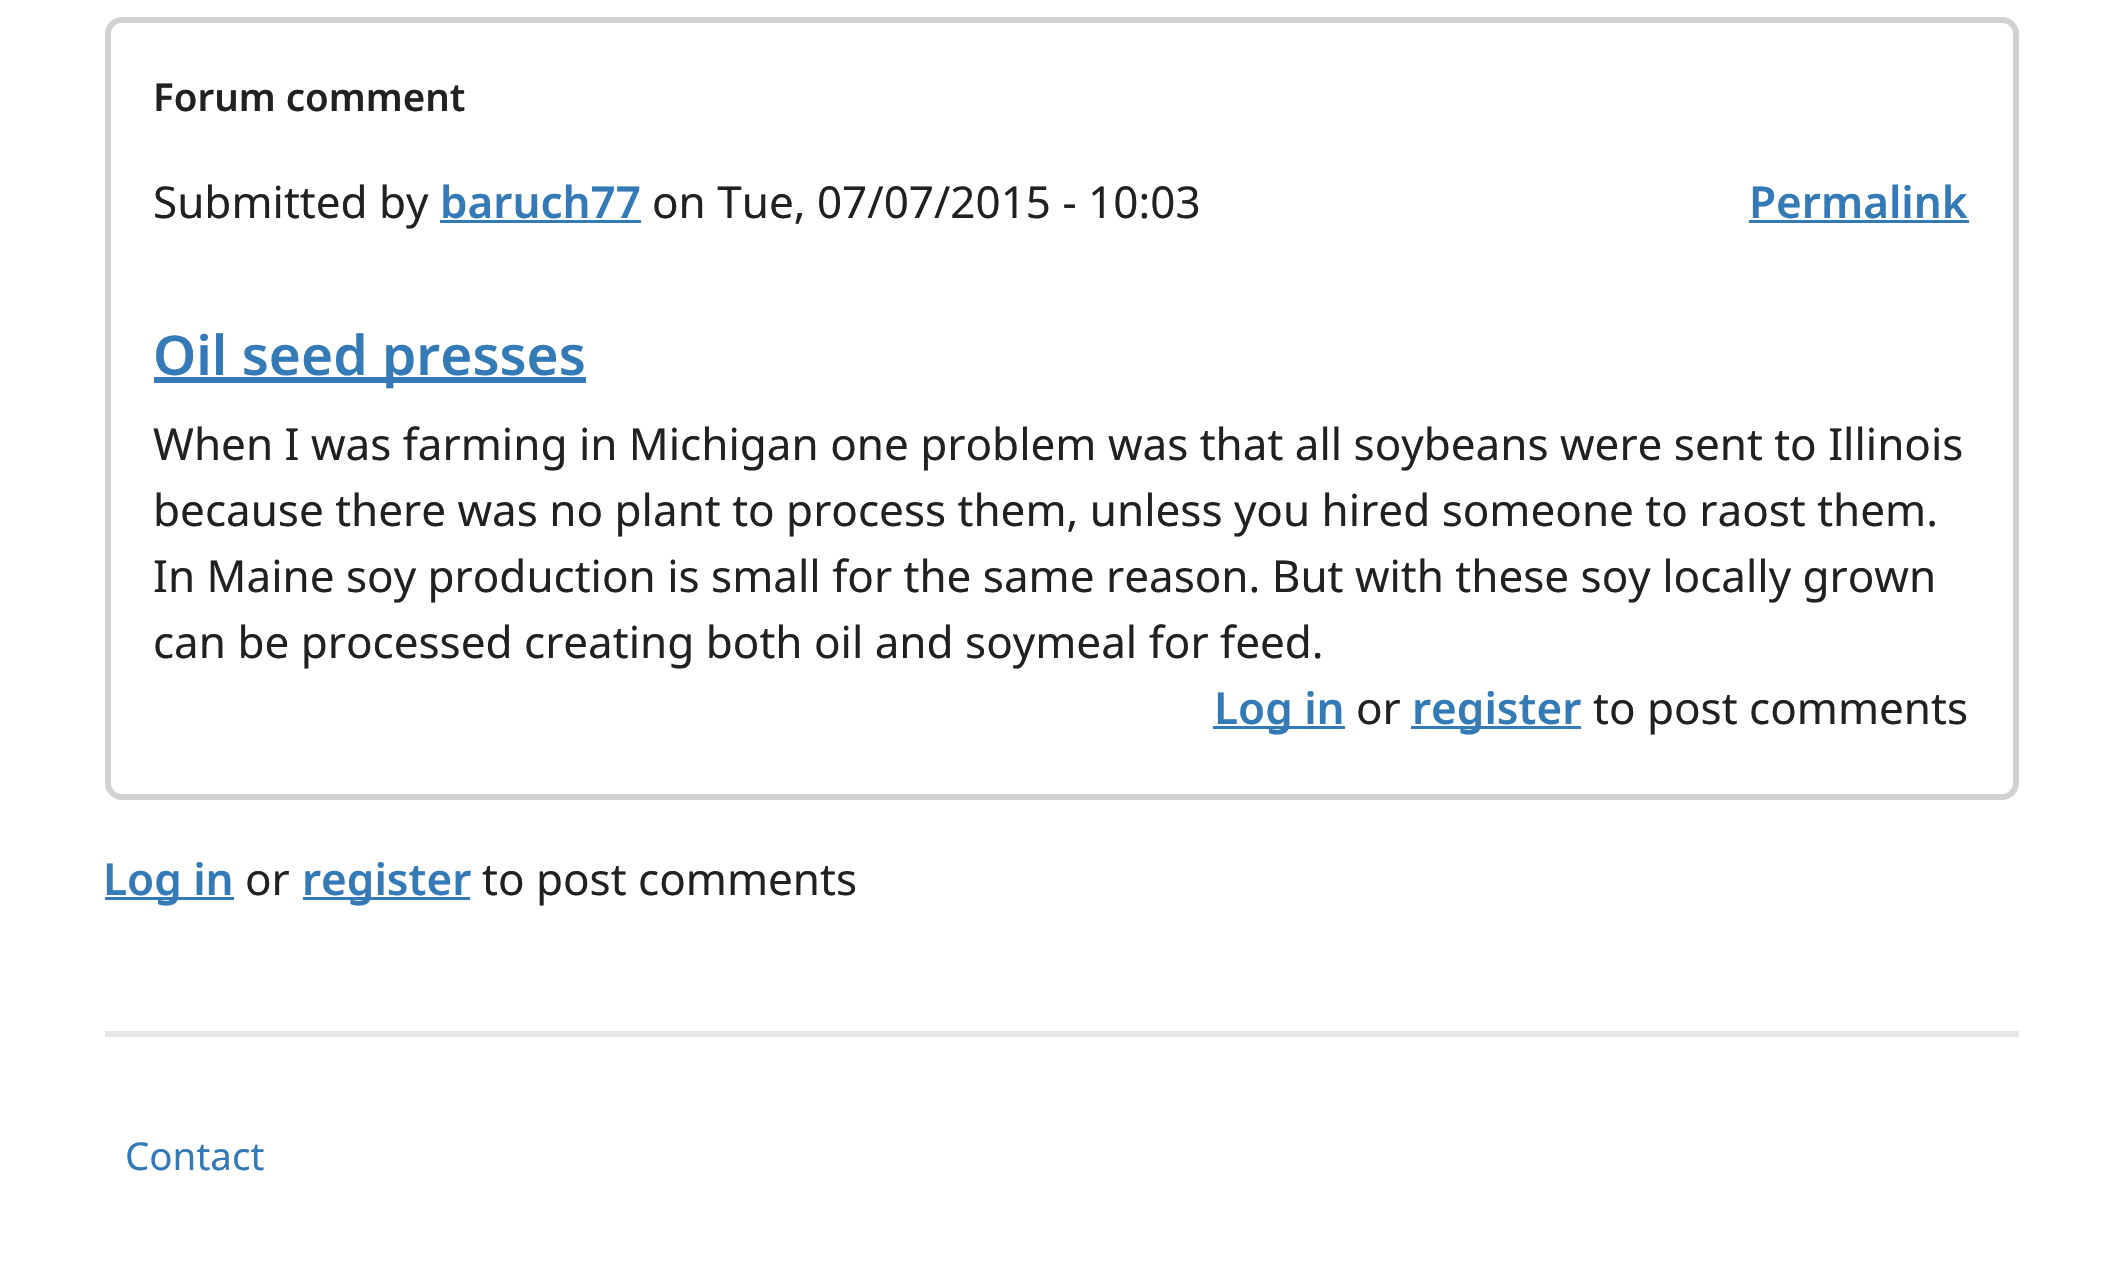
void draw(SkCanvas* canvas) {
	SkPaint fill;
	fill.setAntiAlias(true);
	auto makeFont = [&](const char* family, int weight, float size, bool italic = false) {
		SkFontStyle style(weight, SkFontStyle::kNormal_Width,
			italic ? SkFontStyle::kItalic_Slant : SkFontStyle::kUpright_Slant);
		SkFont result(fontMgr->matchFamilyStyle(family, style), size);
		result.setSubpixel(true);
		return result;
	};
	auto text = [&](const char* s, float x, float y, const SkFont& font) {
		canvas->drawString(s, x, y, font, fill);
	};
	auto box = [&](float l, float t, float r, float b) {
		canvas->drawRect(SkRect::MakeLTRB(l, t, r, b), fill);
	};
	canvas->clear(0xFFFFFFFF);
	fill.setStyle(SkPaint::kStroke_Style);
	fill.setStrokeWidth(6);
	fill.setColor(0xFFD2D2D2);
	canvas->drawRoundRect(SkRect::MakeLTRB(108, 20, 2016, 797), 14, 14, fill);
	fill.setStyle(SkPaint::kFill_Style);
	fill.setColor(0xFF337AB7);
	box(440, 220, 641, 223);
	box(1749, 220, 1969, 223);
	box(154, 377, 586, 383);
	box(1213, 726, 1345, 729);
	box(1411, 726, 1581, 729);
	box(105, 897, 234, 900);
	box(303, 897, 470, 900);
	fill.setColor(0xFFE7E7E7);
	box(105, 1031, 2019, 1037);
	auto font1 = makeFont("Noto Sans", 600, 38.5f);
	fill.setColor(0xFF212121);
	text("Forum comment", 153, 111, font1);
	auto font2 = makeFont("Noto Sans", 400, 44);
	text("Submitted by", 153, 218, font2);
	auto font3 = makeFont("Noto Sans", 600, 44);
	fill.setColor(0xFF337AB7);
	text("baruch77", 440, 218, font3);
	fill.setColor(0xFF212121);
	text("on Tue, 07/07/2015 - 10:03", 652, 218, font2);
	fill.setColor(0xFF337AB7);
	text("Permalink", 1749, 218, font3);
	auto font4 = makeFont("Noto Sans", 600, 55);
	text("Oil seed presses", 153, 375, font4);
	fill.setColor(0xFF212121);
	text("When I was farming in Michigan one problem was that all soybeans were sent to Illinois", 153, 460, font2);
	text("because there was no plant to process them, unless you hired someone to raost them.", 153, 526, font2);
	text("In Maine soy production is small for the same reason. But with these soy locally grown", 153, 592, font2);
	text("can be processed creating both oil and soymeal for feed.", 153, 658, font2);
	fill.setColor(0xFF337AB7);
	text("Log in", 1214, 724, font3);
	fill.setColor(0xFF212121);
	text("or", 1356, 724, font2);
	fill.setColor(0xFF337AB7);
	text("register", 1412, 724, font3);
	fill.setColor(0xFF212121);
	text("to post comments", 1593, 724, font2);
	fill.setColor(0xFF337AB7);
	text("Log in", 103, 895, font3);
	fill.setColor(0xFF212121);
	text("or", 245, 895, font2);
	fill.setColor(0xFF337AB7);
	text("register", 302, 895, font3);
	fill.setColor(0xFF212121);
	text("to post comments", 482, 895, font2);
	auto font5 = makeFont("Noto Sans", 400, 38.5f);
	fill.setColor(0xFF337AB7);
	text("Contact", 125, 1170, font5);
}
